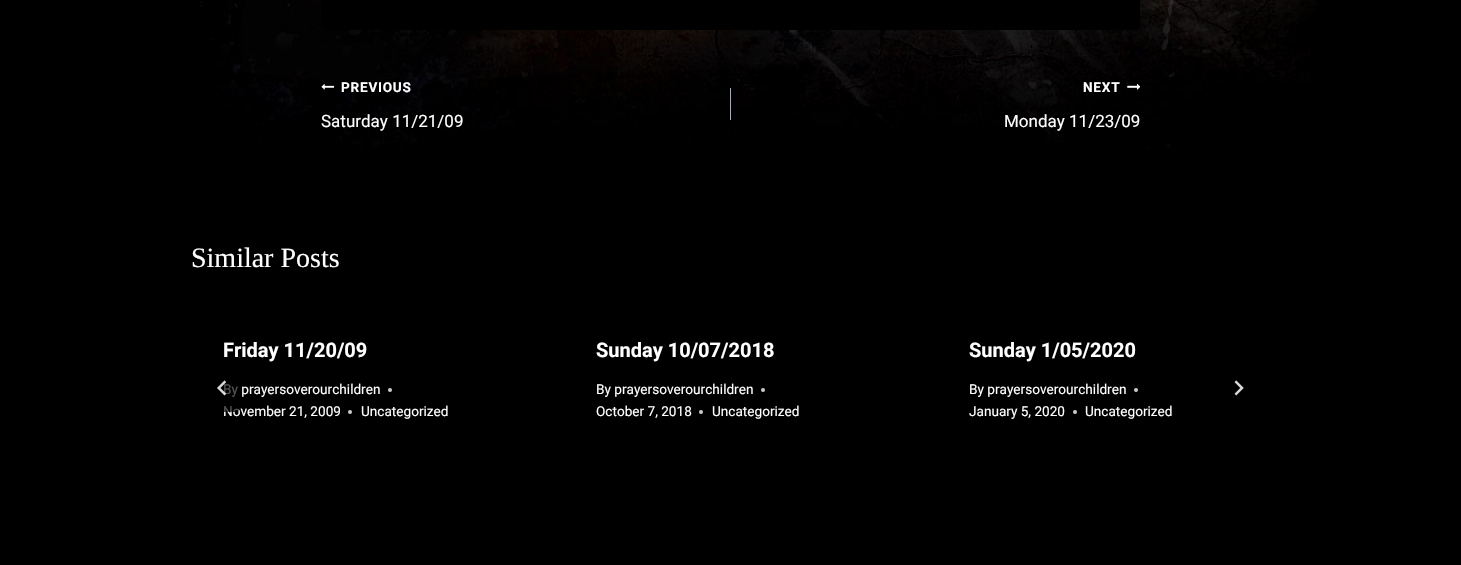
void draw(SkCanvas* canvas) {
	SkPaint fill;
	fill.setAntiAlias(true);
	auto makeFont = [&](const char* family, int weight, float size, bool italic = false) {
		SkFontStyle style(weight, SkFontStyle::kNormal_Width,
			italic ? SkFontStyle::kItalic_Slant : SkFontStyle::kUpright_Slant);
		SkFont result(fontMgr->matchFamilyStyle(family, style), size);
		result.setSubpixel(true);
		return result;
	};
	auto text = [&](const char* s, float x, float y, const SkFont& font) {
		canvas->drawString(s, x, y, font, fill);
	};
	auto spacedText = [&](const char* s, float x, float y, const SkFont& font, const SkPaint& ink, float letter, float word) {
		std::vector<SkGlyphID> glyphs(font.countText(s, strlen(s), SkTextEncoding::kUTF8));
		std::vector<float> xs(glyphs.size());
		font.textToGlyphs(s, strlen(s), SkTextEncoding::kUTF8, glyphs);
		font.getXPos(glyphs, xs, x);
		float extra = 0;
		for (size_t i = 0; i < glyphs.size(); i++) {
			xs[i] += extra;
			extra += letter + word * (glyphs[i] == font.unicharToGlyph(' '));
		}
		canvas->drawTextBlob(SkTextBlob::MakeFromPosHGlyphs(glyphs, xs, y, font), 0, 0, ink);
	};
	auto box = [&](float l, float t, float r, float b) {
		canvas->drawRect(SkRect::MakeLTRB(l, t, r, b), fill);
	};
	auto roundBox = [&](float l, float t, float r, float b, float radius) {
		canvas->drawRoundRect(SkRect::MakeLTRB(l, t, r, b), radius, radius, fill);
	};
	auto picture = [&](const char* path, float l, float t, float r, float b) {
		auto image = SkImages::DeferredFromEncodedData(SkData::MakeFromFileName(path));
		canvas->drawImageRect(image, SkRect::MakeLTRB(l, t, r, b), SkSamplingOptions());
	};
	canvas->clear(0xFF000000);
	picture("image0.png", 200, 0, 1317, 150);
	fill.setColor(0xFF000000);
	roundBox(321, -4, 1140, 30, 4);
	picture("image1.png", 321, 84, 334, 90);
	fill.setColor(0xFFA0AEC0);
	box(730, 88, 731, 120);
	picture("image2.png", 1127, 83, 1140, 90);
	fill.setColor(0xFFCCCCCC);
	canvas->drawCircle(390, 390, 2, fill);
	canvas->drawCircle(350, 412, 2, fill);
	canvas->drawCircle(763, 390, 2, fill);
	canvas->drawCircle(701, 412, 2, fill);
	canvas->drawCircle(1136, 390, 2, fill);
	canvas->drawCircle(1075, 412, 2, fill);
	picture("image4.png", 1234, 380, 1244, 396);
	auto font1 = makeFont("Roboto", 700, 13.6f);
	fill.setColor(0xFFFFFFFF);
	spacedText("PREVIOUS", 341, 92, font1, fill, 0.75f, 0);
	auto font2 = makeFont("Roboto", 400, 17);
	text("Saturday 11/21/09", 321, 127, font2);
	spacedText("NEXT", 1083, 92, font1, fill, 0.75f, 0);
	text("Monday 11/23/09", 1004, 127, font2);
	auto font3 = makeFont("Liberation Serif", 400, 28);
	text("Similar Posts", 191, 267, font3);
	auto font4 = makeFont("Roboto", 700, 20);
	text("Friday 11/20/09", 223, 357, font4);
	auto font5 = makeFont("Roboto", 400, 13.6f);
	text("By prayersoverourchildren", 223, 394, font5);
	text("November 21, 2009", 223, 416, font5);
	text("Uncategorized", 361, 416, font5);
	text("Sunday 10/07/2018", 596, 357, font4);
	text("By prayersoverourchildren", 596, 394, font5);
	text("October 7, 2018", 596, 416, font5);
	text("Uncategorized", 712, 416, font5);
	text("Sunday 1/05/2020", 969, 357, font4);
	text("By prayersoverourchildren", 969, 394, font5);
	text("January 5, 2020", 969, 416, font5);
	text("Uncategorized", 1085, 416, font5);
	fill.setColor(0xAD000000);
	roundBox(207, 364, 239, 412, 3);
	picture("image3.png", 217, 380, 227, 396);
}
